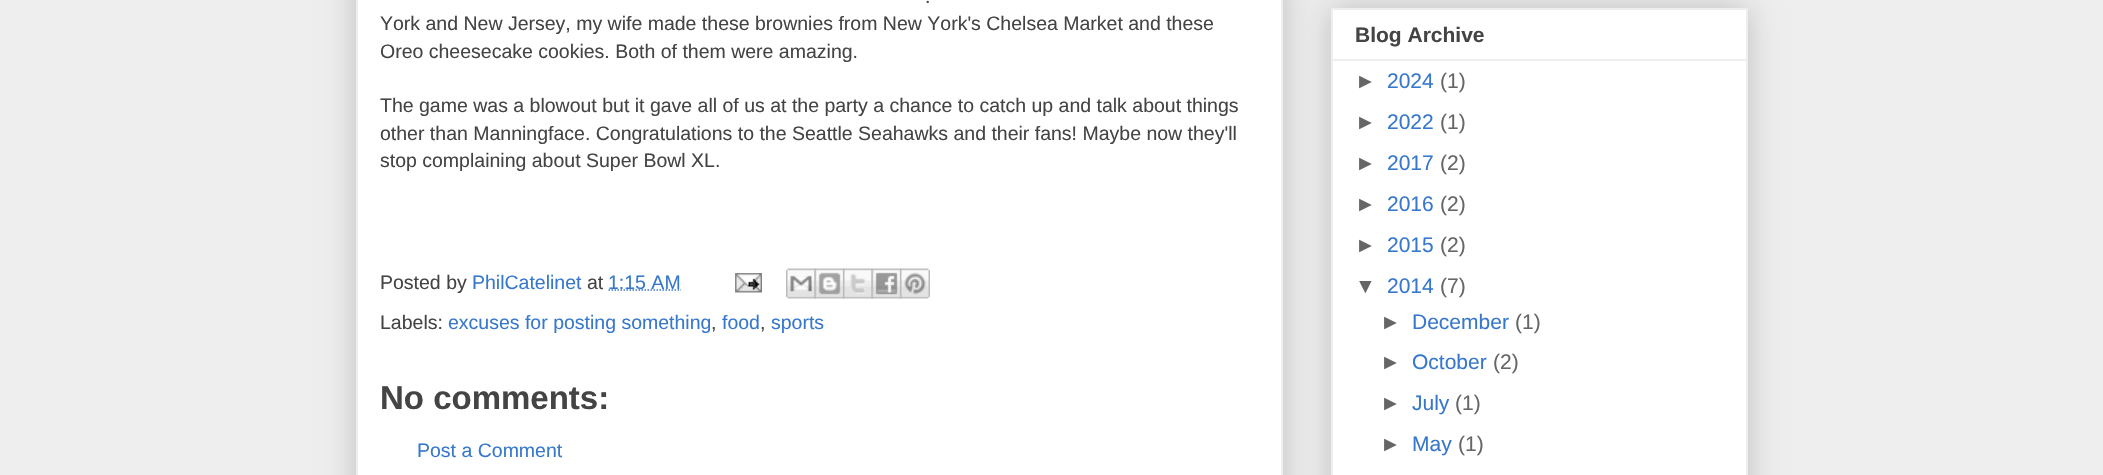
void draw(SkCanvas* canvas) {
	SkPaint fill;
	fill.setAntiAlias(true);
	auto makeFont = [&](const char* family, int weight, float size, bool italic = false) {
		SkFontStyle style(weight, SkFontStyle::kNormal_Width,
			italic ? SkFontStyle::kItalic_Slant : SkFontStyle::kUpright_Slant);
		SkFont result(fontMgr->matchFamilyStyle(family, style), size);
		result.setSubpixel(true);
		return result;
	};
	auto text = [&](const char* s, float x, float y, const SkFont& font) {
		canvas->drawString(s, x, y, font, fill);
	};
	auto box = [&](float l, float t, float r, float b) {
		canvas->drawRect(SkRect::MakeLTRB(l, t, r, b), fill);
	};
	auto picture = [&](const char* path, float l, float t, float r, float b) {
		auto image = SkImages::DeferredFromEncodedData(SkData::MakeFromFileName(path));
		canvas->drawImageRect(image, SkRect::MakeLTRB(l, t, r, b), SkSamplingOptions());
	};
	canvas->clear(0xFFEEEEEE);
	fill.setColor(0x33000000);
	fill.setMaskFilter(SkMaskFilter::MakeBlur(kNormal_SkBlurStyle, 15));
	canvas->drawRect(SkRect::MakeLTRB(356, -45, 1283, 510), fill);
	fill.setMaskFilter(nullptr);
	fill.setColor(0xFFFFFFFF);
	canvas->drawRect(SkRect::MakeLTRB(357, -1, 1282, 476), fill);
	fill.setStyle(SkPaint::kStroke_Style);
	fill.setStrokeWidth(2);
	fill.setColor(0xFFEEEEEE);
	canvas->drawRect(SkRect::MakeLTRB(357, -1, 1282, 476), fill);
	fill.setStrokeWidth(1.5f);
	fill.setColor(0xFF3778CD);
	fill.setPathEffect(SkDashPathEffect::Make({{1.5f, 1.5f}}, 0));
	canvas->drawPath(SkPathBuilder().moveTo(608.5f, 290).lineTo(681, 290).detach(), fill);
	fill.setPathEffect(nullptr);
	picture("image0.png", 735, 273, 762, 293);
	picture("image1.png", 786, 268, 816, 299);
	picture("image2.png", 814, 268, 845, 299);
	picture("image3.png", 843, 268, 873, 299);
	picture("image4.png", 871, 268, 902, 299);
	picture("image5.png", 900, 268, 930, 299);
	fill.setStyle(SkPaint::kFill_Style);
	fill.setColor(0x33000000);
	fill.setMaskFilter(SkMaskFilter::MakeBlur(kNormal_SkBlurStyle, 15));
	canvas->drawRect(SkRect::MakeLTRB(1331, 8, 1748, 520), fill);
	fill.setMaskFilter(nullptr);
	fill.setColor(0xFFFFFFFF);
	canvas->drawRect(SkRect::MakeLTRB(1332, 9, 1747, 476), fill);
	fill.setStyle(SkPaint::kStroke_Style);
	fill.setStrokeWidth(2);
	fill.setColor(0xFFEEEEEE);
	canvas->drawRect(SkRect::MakeLTRB(1332, 9, 1747, 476), fill);
	fill.setStyle(SkPaint::kFill_Style);
	box(1332, 59, 1746, 61);
	auto font1 = makeFont("Liberation Sans", 400, 19.5f);
	fill.setColor(0xFF444444);
	text(".", 925, 3, font1);
	text("York and New Jersey, my wife made these brownies from New York's Chelsea Market and these", 380, 30, font1);
	text("Oreo cheesecake cookies. Both of them were amazing.", 380, 58, font1);
	text("The game was a blowout but it gave all of us at the party a chance to catch up and talk about things", 380, 112, font1);
	text("other than Manningface. Congratulations to the Seattle Seahawks and their fans! Maybe now they'll", 380, 140, font1);
	text("stop complaining about Super Bowl XL.", 380, 167, font1);
	text("Posted by", 380, 289, font1);
	fill.setColor(0xFF3778CD);
	text("PhilCatelinet", 472, 289, font1);
	fill.setColor(0xFF444444);
	text("at", 587, 289, font1);
	fill.setColor(0xFF3778CD);
	text("1:15 AM", 608, 289, font1);
	fill.setColor(0xFF444444);
	text("Labels:", 380, 329, font1);
	fill.setColor(0xFF3778CD);
	text("excuses for posting something", 448, 329, font1);
	fill.setColor(0xFF444444);
	text(",", 711, 329, font1);
	fill.setColor(0xFF3778CD);
	text("food", 722, 329, font1);
	fill.setColor(0xFF444444);
	text(",", 760, 329, font1);
	fill.setColor(0xFF3778CD);
	text("sports", 771, 329, font1);
	auto font2 = makeFont("Liberation Sans", 700, 33);
	fill.setColor(0xFF444444);
	text("No comments:", 380, 409, font2);
	fill.setColor(0xFF3778CD);
	text("Post a Comment", 417, 457, font1);
	auto font3 = makeFont("Liberation Sans", 700, 21);
	fill.setColor(0xFF444444);
	text("Blog Archive", 1355, 42, font3);
	auto font4 = makeFont("Liberation Sans", 400, 21);
	fill.setColor(0xFF666666);
	text("►", 1355, 88, font4);
	fill.setColor(0xFF3778CD);
	text("2024", 1387, 88, font4);
	fill.setColor(0xFF666666);
	text("(1)", 1440, 88, font4);
	text("►", 1355, 129, font4);
	fill.setColor(0xFF3778CD);
	text("2022", 1387, 129, font4);
	fill.setColor(0xFF666666);
	text("(1)", 1440, 129, font4);
	text("►", 1355, 170, font4);
	fill.setColor(0xFF3778CD);
	text("2017", 1387, 170, font4);
	fill.setColor(0xFF666666);
	text("(2)", 1440, 170, font4);
	text("►", 1355, 211, font4);
	fill.setColor(0xFF3778CD);
	text("2016", 1387, 211, font4);
	fill.setColor(0xFF666666);
	text("(2)", 1440, 211, font4);
	text("►", 1355, 252, font4);
	fill.setColor(0xFF3778CD);
	text("2015", 1387, 252, font4);
	fill.setColor(0xFF666666);
	text("(2)", 1440, 252, font4);
	text("▼", 1355, 293, font4);
	fill.setColor(0xFF3778CD);
	text("2014", 1387, 293, font4);
	fill.setColor(0xFF666666);
	text("(7)", 1440, 293, font4);
	text("►", 1380, 329, font4);
	fill.setColor(0xFF3778CD);
	text("December", 1412, 329, font4);
	fill.setColor(0xFF666666);
	text("(1)", 1515, 329, font4);
	text("►", 1380, 369, font4);
	fill.setColor(0xFF3778CD);
	text("October", 1412, 369, font4);
	fill.setColor(0xFF666666);
	text("(2)", 1493, 369, font4);
	text("►", 1380, 410, font4);
	fill.setColor(0xFF3778CD);
	text("July", 1412, 410, font4);
	fill.setColor(0xFF666666);
	text("(1)", 1455, 410, font4);
	text("►", 1380, 451, font4);
	fill.setColor(0xFF3778CD);
	text("May", 1412, 451, font4);
	fill.setColor(0xFF666666);
	text("(1)", 1458, 451, font4);
}
